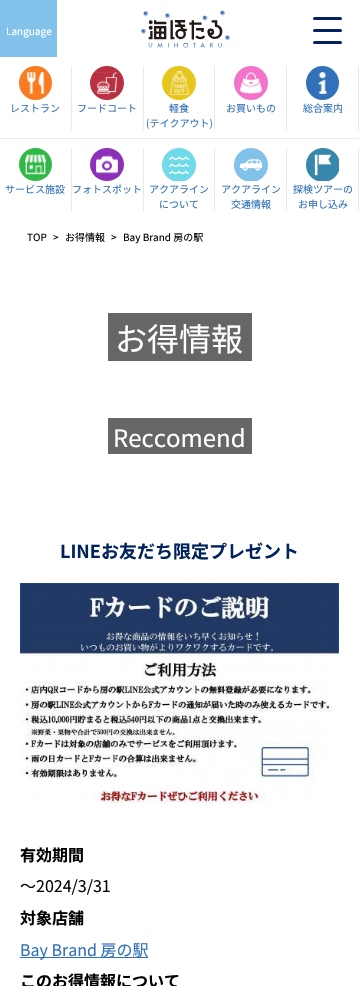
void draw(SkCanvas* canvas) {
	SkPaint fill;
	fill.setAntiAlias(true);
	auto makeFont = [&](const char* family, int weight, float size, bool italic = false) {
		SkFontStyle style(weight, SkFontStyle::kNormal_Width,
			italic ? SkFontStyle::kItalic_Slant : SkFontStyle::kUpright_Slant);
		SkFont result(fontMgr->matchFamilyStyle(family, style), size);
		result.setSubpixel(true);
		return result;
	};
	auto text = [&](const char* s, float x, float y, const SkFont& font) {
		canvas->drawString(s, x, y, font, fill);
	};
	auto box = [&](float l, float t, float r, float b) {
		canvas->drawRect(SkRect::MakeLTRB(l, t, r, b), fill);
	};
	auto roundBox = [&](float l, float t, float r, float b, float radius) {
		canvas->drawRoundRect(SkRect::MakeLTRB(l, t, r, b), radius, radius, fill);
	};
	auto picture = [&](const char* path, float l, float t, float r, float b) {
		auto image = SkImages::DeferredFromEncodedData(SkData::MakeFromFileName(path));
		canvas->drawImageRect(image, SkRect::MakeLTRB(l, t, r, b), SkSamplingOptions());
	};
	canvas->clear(0xFFFFFFFF);
	fill.setColor(0xFF82C1EA);
	box(0, 0, 57, 57);
	picture("image0.png", 141, 10, 230, 48);
	fill.setColor(0xFF00235D);
	roundBox(313, 17, 342, 20, 1.5f);
	roundBox(313, 29, 342, 32, 1.5f);
	roundBox(313, 41, 342, 44, 1.5f);
	fill.setColor(0xFFEAEAEA);
	box(71, 66, 72, 130);
	picture("image1.png", 19, 66, 52, 100);
	box(143, 66, 144, 130);
	picture("image2.png", 90, 66, 124, 100);
	box(214, 66, 215, 130);
	picture("image3.png", 162, 66, 196, 100);
	box(286, 66, 287, 130);
	picture("image4.png", 234, 66, 268, 100);
	box(358, 66, 359, 130);
	picture("image5.png", 306, 66, 339, 100);
	box(0, 138, 359, 139);
	box(71, 148, 72, 211);
	picture("image6.png", 19, 148, 52, 181);
	box(143, 148, 144, 211);
	picture("image7.png", 90, 148, 124, 181);
	box(214, 148, 215, 211);
	picture("image8.png", 162, 148, 196, 181);
	box(286, 148, 287, 211);
	picture("image9.png", 234, 148, 268, 181);
	box(358, 148, 359, 211);
	picture("image10.png", 306, 148, 339, 181);
	fill.setColor(0xFF666666);
	box(108, 313, 252, 361);
	box(108, 418, 252, 454);
	picture("image11.png", 20, 583, 339, 803);
	fill.setColor(0xFF3071B9);
	box(20, 957, 148, 958);
	auto font1 = makeFont("Noto Sans JP", 400, 10);
	fill.setColor(0xFFFFFFFF);
	text("Language", 6, 35, font1);
	fill.setColor(0xFF3071B9);
	text("レストラン", 10, 112, font1);
	text("フードコート", 77, 112, font1);
	text("軽食", 169, 112, font1);
	text("(テイクアウト)", 146, 127, font1);
	text("お買いもの", 226, 112, font1);
	text("総合案内", 303, 112, font1);
	text("サービス施設", 5, 193, font1);
	text("フォトスポット", 72, 193, font1);
	text("アクアライン", 149, 193, font1);
	text("について", 159, 208, font1);
	text("アクアライン", 221, 193, font1);
	text("交通情報", 231, 208, font1);
	text("探検ツアーの", 293, 193, font1);
	text("お申し込み", 298, 208, font1);
	fill.setColor(0xFF000000);
	text("TOP", 27, 241, font1);
	text(">", 53, 241, font1);
	text("お得情報", 65, 241, font1);
	text(">", 111, 241, font1);
	text("Bay Brand 房の駅", 123, 241, font1);
	auto font2 = makeFont("Noto Sans JP", 400, 32);
	fill.setColor(0xFFFFFFFF);
	text("お得情報", 115, 351, font2);
	auto font3 = makeFont("Noto Sans JP", 400, 24);
	text("Reccomend", 113, 447, font3);
	auto font4 = makeFont("Noto Sans JP", 700, 18);
	fill.setColor(0xFF00235D);
	text("LINEお友だち限定プレゼント", 60, 558, font4);
	auto font5 = makeFont("Noto Sans JP", 700, 16);
	fill.setColor(0xFF000000);
	text("有効期間", 20, 861, font5);
	auto font6 = makeFont("Noto Sans JP", 400, 16);
	text("～2024/3/31", 20, 892, font6);
	text("対象店舗", 20, 924, font5);
	fill.setColor(0xFF3071B9);
	text("Bay Brand 房の駅", 20, 956, font6);
	fill.setColor(0xFF000000);
	text("このお得情報について", 20, 987, font5);
}
